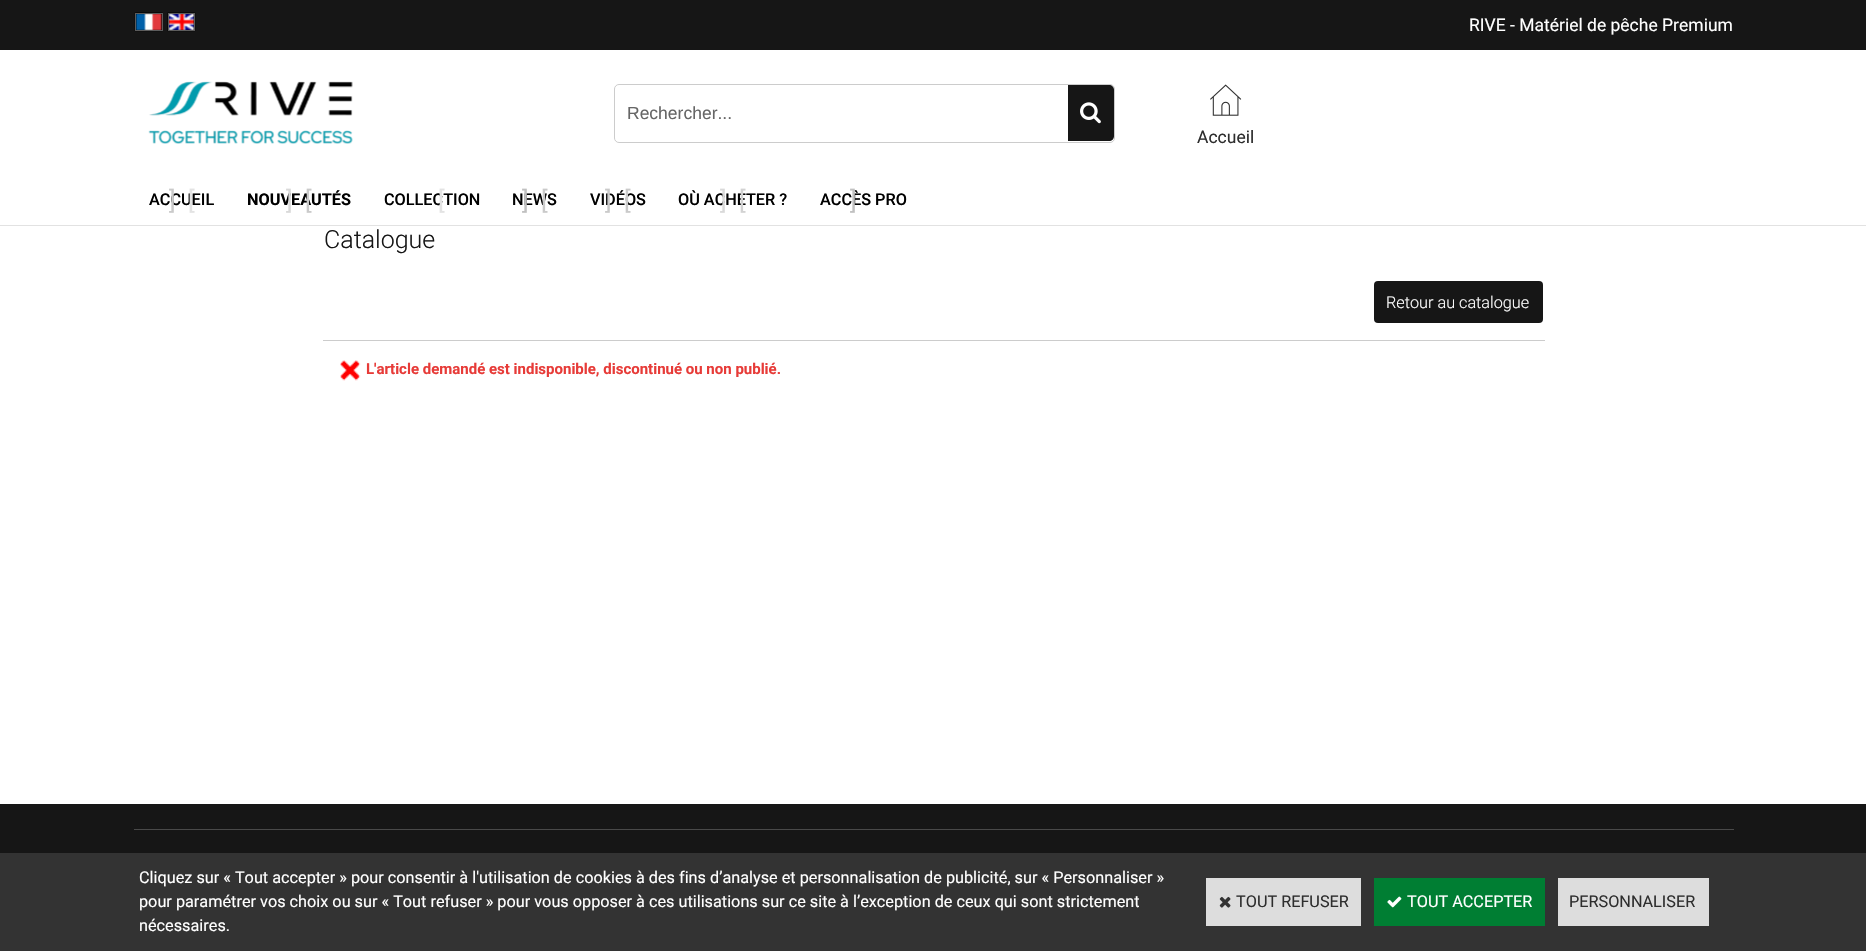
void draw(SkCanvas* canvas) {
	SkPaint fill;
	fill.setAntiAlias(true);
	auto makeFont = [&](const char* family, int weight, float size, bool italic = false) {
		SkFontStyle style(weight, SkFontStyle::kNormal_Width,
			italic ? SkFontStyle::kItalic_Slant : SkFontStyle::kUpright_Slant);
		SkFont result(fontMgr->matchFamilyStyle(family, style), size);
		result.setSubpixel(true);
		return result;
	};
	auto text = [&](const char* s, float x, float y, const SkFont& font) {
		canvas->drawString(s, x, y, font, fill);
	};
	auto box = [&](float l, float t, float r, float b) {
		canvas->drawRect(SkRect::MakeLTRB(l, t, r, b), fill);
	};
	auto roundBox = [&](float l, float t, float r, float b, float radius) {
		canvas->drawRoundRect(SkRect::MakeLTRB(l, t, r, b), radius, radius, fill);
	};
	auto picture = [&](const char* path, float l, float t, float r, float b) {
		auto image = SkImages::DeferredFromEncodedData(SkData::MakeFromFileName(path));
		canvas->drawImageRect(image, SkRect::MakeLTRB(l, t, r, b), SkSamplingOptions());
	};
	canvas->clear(0xFFFFFFFF);
	fill.setColor(0xFF161616);
	box(0, 0, 1866, 50);
	fill.setColor(0xFFE2E2E2);
	box(0, 225, 1866, 226);
	picture("image0.png", 134, 12, 163, 32);
	fill.setStyle(SkPaint::kStroke_Style);
	fill.setStrokeWidth(1);
	fill.setColor(0xFF5C5C5C);
	canvas->drawRect(SkRect::MakeLTRB(135.5f, 13.5f, 162.5f, 30.5f), fill);
	picture("image1.png", 167, 12, 196, 32);
	canvas->drawRect(SkRect::MakeLTRB(168.5f, 13.5f, 194.5f, 30.5f), fill);
	picture("image2.png", 148, 81, 353, 144);
	fill.setColor(0xFFCCCCCC);
	canvas->drawRoundRect(SkRect::MakeLTRB(614.5f, 84.5f, 1114.5f, 142.5f), 4.5f, 4.5f, fill);
	fill.setStyle(SkPaint::kFill_Style);
	fill.setColor(0xFF161616);
	canvas->drawPath(SkPathBuilder().moveTo(1068, 85).lineTo(1109, 85).cubicTo(1112, 85, 1114, 87, 1114, 90).lineTo(1114, 136).cubicTo(1114, 139, 1112, 141, 1109, 141).lineTo(1068, 141).close().detach(), fill);
	picture("image3.png", 1080, 102, 1101, 124);
	picture("image4.png", 1210, 84, 1242, 116);
	roundBox(1374, 281, 1543, 323, 4);
	fill.setColor(0xFFCCCCCC);
	box(323, 340, 1545, 341);
	picture("image5.png", 340, 360, 361, 381);
	fill.setColor(0xFF161616);
	box(0, 804, 1866, 853);
	fill.setColor(0xFF494949);
	box(134, 829, 1734, 830);
	fill.setColor(0xFF333333);
	box(0, 853, 1866, 951);
	fill.setColor(0xFFDDDDDD);
	box(1206, 878, 1361, 926);
	picture("image6.png", 1219, 896, 1231, 908);
	fill.setColor(0xFF007E33);
	box(1374, 878, 1545, 926);
	picture("image7.png", 1387, 896, 1402, 908);
	fill.setColor(0xFFDDDDDD);
	box(1558, 878, 1709, 926);
	auto font1 = makeFont("Roboto", 400, 17.5f);
	fill.setColor(0xFFFFFFFF);
	text("RIVE - Matériel de pêche Premium", 1469, 31, font1);
	auto font2 = makeFont("Liberation Sans", 400, 17.5f);
	fill.setColor(0xFF666666);
	text("Rechercher...", 627, 119, font2);
	fill.setColor(0xFF2E2E2E);
	text("Accueil", 1197, 143, font1);
	auto font3 = makeFont("Roboto", 500, 16.25f);
	fill.setColor(0xFF000000);
	text("ACCUEIL", 149, 205, font3);
	auto font4 = makeFont("Roboto", 400, 25);
	fill.setColor(0xFFCACACA);
	text("]", 169, 209, font4);
	fill.setColor(0xFFE3E3E3);
	text("[", 188, 209, font4);
	auto font5 = makeFont("Roboto", 700, 16.25f);
	fill.setColor(0xFF000000);
	text("NOUVEAUTÉS", 247, 205, font5);
	fill.setColor(0xFFD9D9D9);
	text("]", 286, 209, font4);
	fill.setColor(0xFFCACACA);
	text("[", 305, 209, font4);
	fill.setColor(0xFF000000);
	text("COLLECTION", 384, 205, font3);
	fill.setColor(0xFFE3E3E3);
	text("[", 438, 209, font4);
	fill.setColor(0xFF000000);
	text("NEWS", 512, 205, font3);
	fill.setColor(0xFFC0C0C0);
	text("]", 522, 209, font4);
	fill.setColor(0xFFCACACA);
	text("[", 541, 209, font4);
	fill.setColor(0xFF000000);
	text("VIDÉOS", 590, 205, font3);
	fill.setColor(0xFFCACACA);
	text("]", 605, 209, font4);
	text("[", 624, 209, font4);
	fill.setColor(0xFF000000);
	text("OÙ ACHETER ?", 678, 205, font3);
	fill.setColor(0xFFD9D9D9);
	text("]", 720, 209, font4);
	fill.setColor(0xFFD2D2D2);
	text("[", 739, 209, font4);
	fill.setColor(0xFF000000);
	text("ACCÈS PRO", 820, 205, font3);
	fill.setColor(0xFFC0C0C0);
	text("]", 850, 209, font4);
	auto font6 = makeFont("Roboto", 300, 25);
	fill.setColor(0xFF161616);
	text("Catalogue", 324, 248, font6);
	auto font7 = makeFont("Roboto", 300, 16.25f);
	fill.setColor(0xFFFFFFFF);
	text("Retour au catalogue", 1386, 308, font7);
	auto font8 = makeFont("Roboto", 700, 15);
	fill.setColor(0xFFE73B38);
	text("L'article demandé est indisponible, discontinué ou non publié.", 366, 374, font8);
	auto font9 = makeFont("Roboto", 400, 16.25f);
	fill.setColor(0xFFFFFFFF);
	text("Cliquez sur « Tout accepter » pour consentir à l'utilisation de cookies à des fins d’analyse et personnalisation de publicité, sur « Personnaliser »", 139, 883, font9);
	text("pour paramétrer vos choix ou sur « Tout refuser » pour vous opposer à ces utilisations sur ce site à l’exception de ceux qui sont strictement", 139, 907, font9);
	text("nécessaires.", 139, 931, font9);
	fill.setColor(0xFF2E2E2E);
	text("TOUT REFUSER", 1236, 907, font9);
	fill.setColor(0xFFFFFFFF);
	text("TOUT ACCEPTER", 1407, 907, font9);
	fill.setColor(0xFF2E2E2E);
	text("PERSONNALISER", 1569, 907, font9);
}
